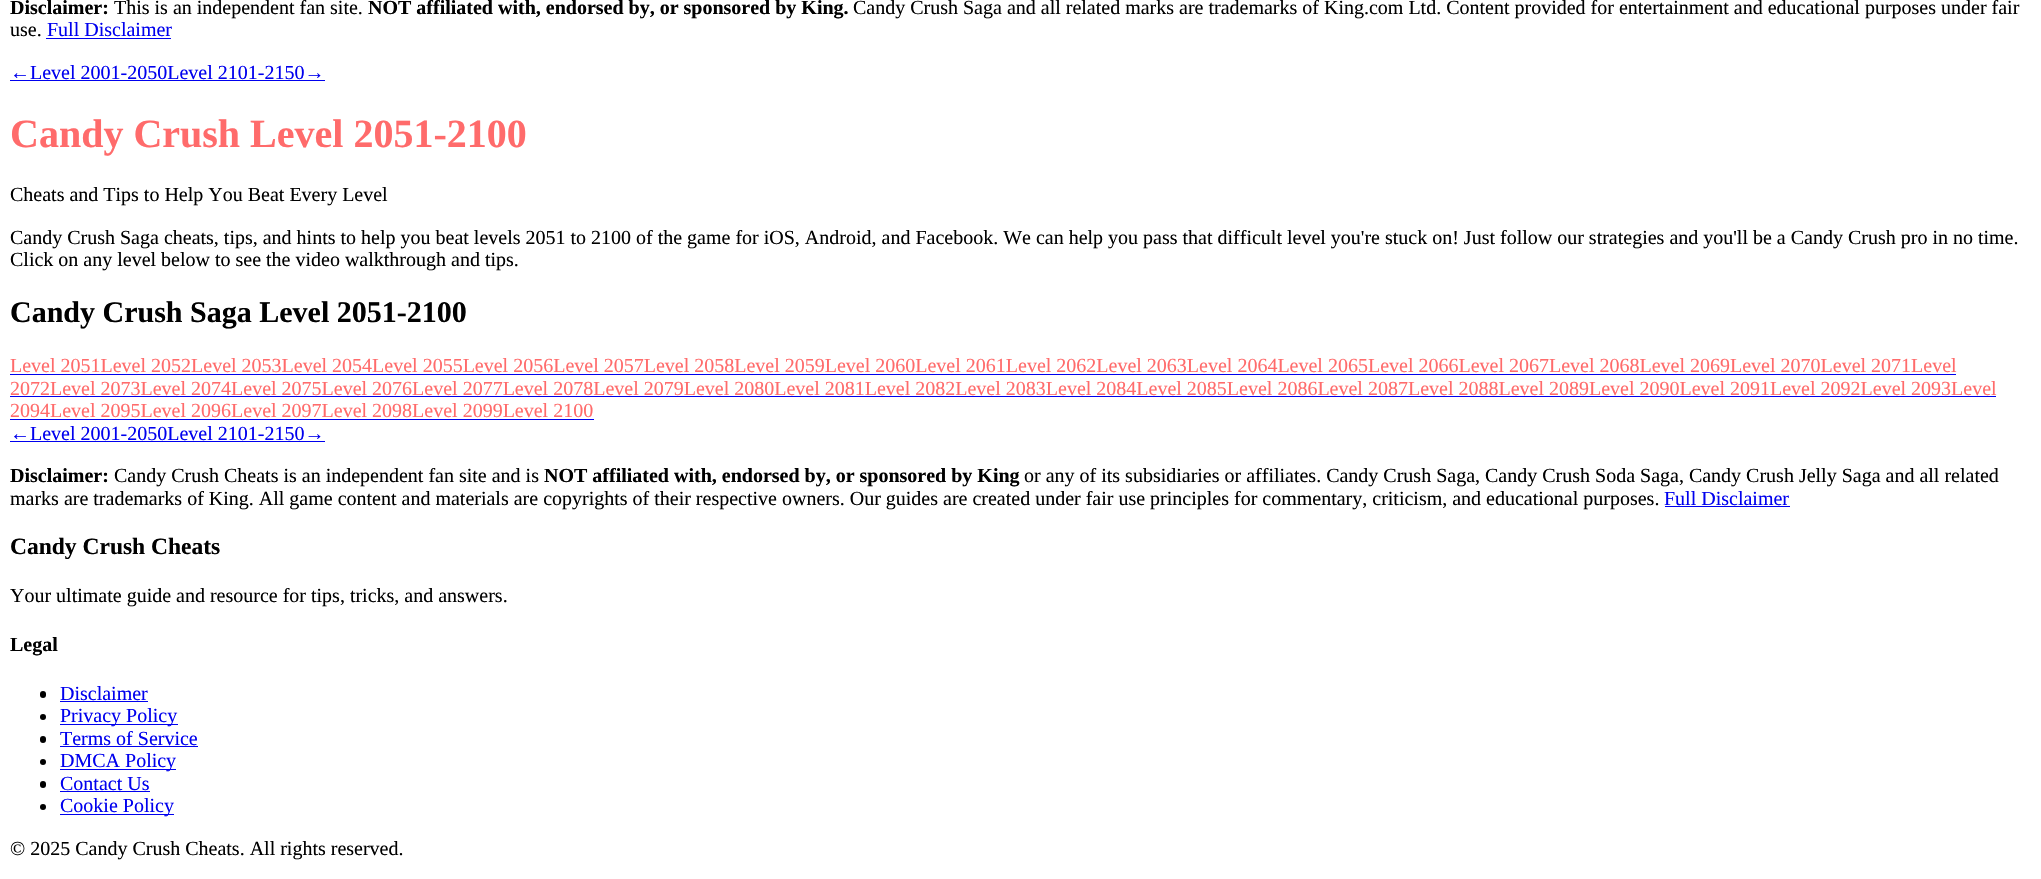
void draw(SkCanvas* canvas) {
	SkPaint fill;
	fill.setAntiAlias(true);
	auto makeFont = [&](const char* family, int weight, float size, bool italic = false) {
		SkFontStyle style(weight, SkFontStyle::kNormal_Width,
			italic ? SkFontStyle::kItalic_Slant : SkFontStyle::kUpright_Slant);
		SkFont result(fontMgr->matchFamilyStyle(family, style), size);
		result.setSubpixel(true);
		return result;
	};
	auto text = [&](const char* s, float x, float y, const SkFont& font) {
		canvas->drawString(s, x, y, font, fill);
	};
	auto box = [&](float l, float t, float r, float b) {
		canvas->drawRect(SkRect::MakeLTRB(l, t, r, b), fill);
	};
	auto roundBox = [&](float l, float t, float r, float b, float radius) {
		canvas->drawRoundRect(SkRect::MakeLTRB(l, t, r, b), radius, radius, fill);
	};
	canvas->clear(0xFFFFFFFF);
	fill.setColor(0xFF0000EE);
	box(46, 38, 171, 39);
	box(10, 80, 325, 81);
	box(10, 374, 1956, 375);
	box(10, 396, 1996, 397);
	box(10, 419, 594, 420);
	box(10, 441, 325, 442);
	box(1665, 506, 1790, 507);
	fill.setColor(0xFF000000);
	roundBox(40, 691, 46, 698, 3);
	fill.setColor(0xFF0000EE);
	box(60, 701, 148, 702);
	fill.setColor(0xFF000000);
	canvas->drawCircle(43, 717, 3, fill);
	fill.setColor(0xFF0000EE);
	box(60, 724, 178, 725);
	fill.setColor(0xFF000000);
	roundBox(40, 736, 46, 743, 3);
	fill.setColor(0xFF0000EE);
	box(60, 746, 198, 747);
	fill.setColor(0xFF000000);
	canvas->drawCircle(43, 762, 3, fill);
	fill.setColor(0xFF0000EE);
	box(60, 769, 176, 770);
	fill.setColor(0xFF000000);
	roundBox(40, 781, 46, 788, 3);
	fill.setColor(0xFF0000EE);
	box(60, 791, 150, 792);
	fill.setColor(0xFF000000);
	canvas->drawCircle(43, 807, 3, fill);
	fill.setColor(0xFF0000EE);
	box(60, 814, 174, 815);
	auto font1 = makeFont("Liberation Serif", 700, 20);
	fill.setColor(0xFF000000);
	text("Disclaimer:", 10, 14, font1);
	auto font2 = makeFont("Liberation Serif", 400, 20);
	text("This is an independent fan site.", 114, 14, font2);
	text("NOT affiliated with, endorsed by, or sponsored by King.", 368, 14, font1);
	text("Candy Crush Saga and all related marks are trademarks of King.com Ltd. Content provided for entertainment and educational purposes under fair", 853, 14, font2);
	text("use.", 10, 36, font2);
	fill.setColor(0xFF0000EE);
	text("Full Disclaimer", 47, 36, font2);
	text("←Level 2001-2050Level 2101-2150→", 10, 79, font2);
	auto font3 = makeFont("Liberation Serif", 700, 40);
	fill.setColor(0xFFFF6B6B);
	text("Candy Crush Level 2051-2100", 10, 147, font3);
	fill.setColor(0xFF000000);
	text("Cheats and Tips to Help You Beat Every Level", 10, 201, font2);
	text("Candy Crush Saga cheats, tips, and hints to help you beat levels 2051 to 2100 of the game for iOS, Android, and Facebook. We can help you pass that difficult level you're stuck on! Just follow our strategies and you'll be a Candy Crush pro in no time.", 10, 244, font2);
	text("Click on any level below to see the video walkthrough and tips.", 10, 266, font2);
	auto font4 = makeFont("Liberation Serif", 700, 30);
	text("Candy Crush Saga Level 2051-2100", 10, 322, font4);
	fill.setColor(0xFFFF6B6B);
	text("Level 2051Level 2052Level 2053Level 2054Level 2055Level 2056Level 2057Level 2058Level 2059Level 2060Level 2061Level 2062Level 2063Level 2064Level 2065Level 2066Level 2067Level 2068Level 2069Level 2070Level 2071Level", 10, 372, font2);
	text("2072Level 2073Level 2074Level 2075Level 2076Level 2077Level 2078Level 2079Level 2080Level 2081Level 2082Level 2083Level 2084Level 2085Level 2086Level 2087Level 2088Level 2089Level 2090Level 2091Level 2092Level 2093Level", 10, 395, font2);
	text("2094Level 2095Level 2096Level 2097Level 2098Level 2099Level 2100", 10, 417, font2);
	fill.setColor(0xFF0000EE);
	text("←Level 2001-2050Level 2101-2150→", 10, 440, font2);
	fill.setColor(0xFF000000);
	text("Disclaimer:", 10, 482, font1);
	text("Candy Crush Cheats is an independent fan site and is", 114, 482, font2);
	text("NOT affiliated with, endorsed by, or sponsored by King", 544, 482, font1);
	text("or any of its subsidiaries or affiliates. Candy Crush Saga, Candy Crush Soda Saga, Candy Crush Jelly Saga and all related", 1024, 482, font2);
	text("marks are trademarks of King. All game content and materials are copyrights of their respective owners. Our guides are created under fair use principles for commentary, criticism, and educational purposes.", 10, 505, font2);
	fill.setColor(0xFF0000EE);
	text("Full Disclaimer", 1664, 505, font2);
	auto font5 = makeFont("Liberation Serif", 700, 23.5f);
	fill.setColor(0xFF000000);
	text("Candy Crush Cheats", 10, 554, font5);
	text("Your ultimate guide and resource for tips, tricks, and answers.", 10, 602, font2);
	text("Legal", 10, 651, font1);
	fill.setColor(0xFF0000EE);
	text("Disclaimer", 60, 700, font2);
	text("Privacy Policy", 60, 722, font2);
	text("Terms of Service", 60, 745, font2);
	text("DMCA Policy", 60, 767, font2);
	text("Contact Us", 60, 790, font2);
	text("Cookie Policy", 60, 812, font2);
	fill.setColor(0xFF000000);
	text("© 2025 Candy Crush Cheats. All rights reserved.", 10, 855, font2);
}
